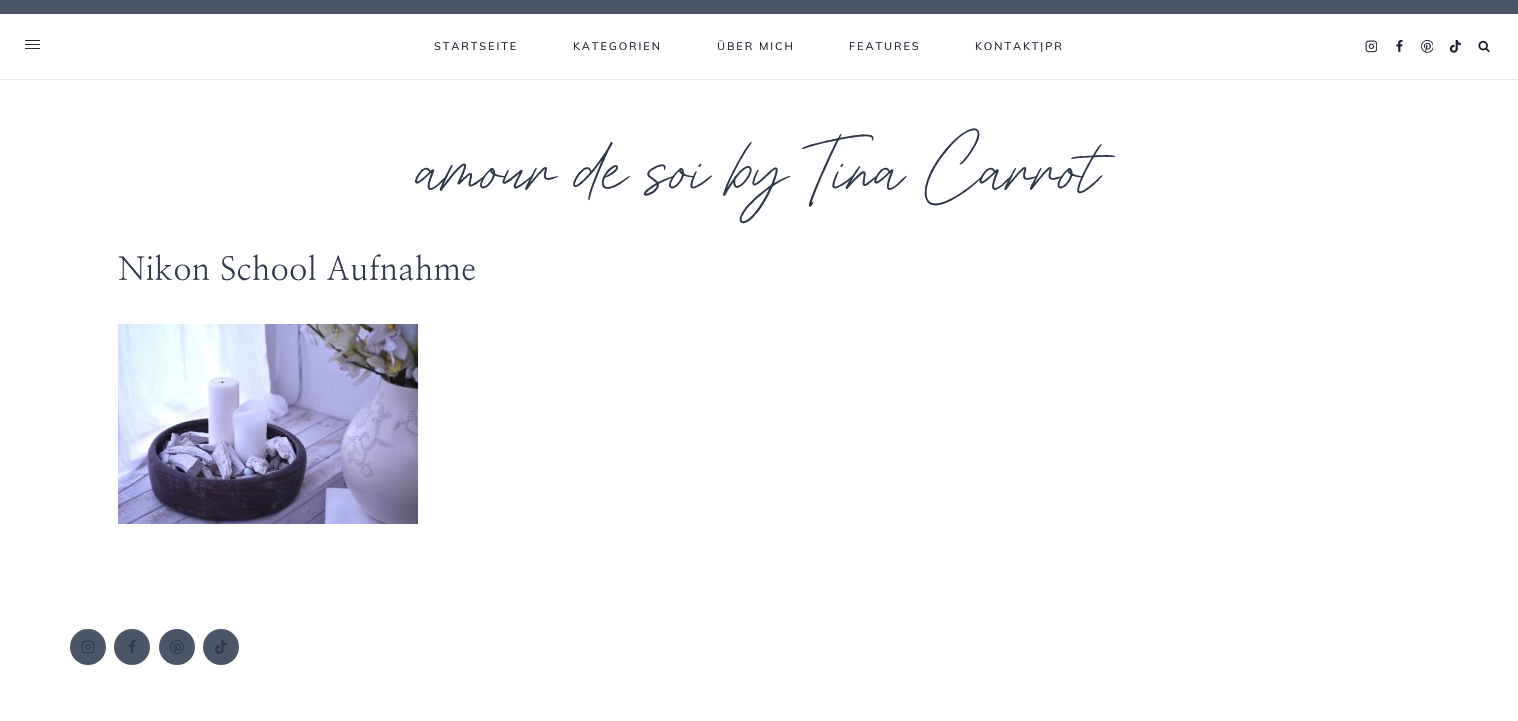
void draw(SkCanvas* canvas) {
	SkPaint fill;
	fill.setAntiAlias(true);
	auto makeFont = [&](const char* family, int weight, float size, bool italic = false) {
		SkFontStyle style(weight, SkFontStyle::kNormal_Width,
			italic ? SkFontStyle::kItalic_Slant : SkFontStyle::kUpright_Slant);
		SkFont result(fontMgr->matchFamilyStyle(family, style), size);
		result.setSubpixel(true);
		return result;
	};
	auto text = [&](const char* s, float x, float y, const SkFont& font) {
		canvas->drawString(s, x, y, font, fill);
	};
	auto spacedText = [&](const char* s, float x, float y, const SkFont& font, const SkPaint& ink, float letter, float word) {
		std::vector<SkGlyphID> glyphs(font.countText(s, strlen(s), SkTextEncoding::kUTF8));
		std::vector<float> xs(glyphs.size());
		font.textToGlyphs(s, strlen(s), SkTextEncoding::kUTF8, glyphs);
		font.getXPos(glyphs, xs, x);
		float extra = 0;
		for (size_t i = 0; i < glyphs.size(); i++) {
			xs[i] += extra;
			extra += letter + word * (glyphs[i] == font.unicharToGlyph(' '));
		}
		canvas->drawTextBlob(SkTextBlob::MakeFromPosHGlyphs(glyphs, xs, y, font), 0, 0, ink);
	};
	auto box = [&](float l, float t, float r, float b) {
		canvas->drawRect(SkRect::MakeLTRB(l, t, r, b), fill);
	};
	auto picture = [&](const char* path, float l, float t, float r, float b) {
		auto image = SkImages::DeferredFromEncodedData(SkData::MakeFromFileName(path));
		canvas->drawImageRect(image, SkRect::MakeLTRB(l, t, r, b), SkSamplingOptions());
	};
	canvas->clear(0xFFFFFFFF);
	fill.setColor(0xFF4A5568);
	box(0, 0, 1518, 14);
	fill.setColor(0xFFEEEAE8);
	box(0, 79, 1518, 80);
	fill.setColor(0xFF2B2B2B);
	box(25, 40, 40, 41);
	box(25, 44, 40, 45);
	box(25, 48, 40, 49);
	picture("image0.png", 1365, 40, 1377, 53);
	picture("image1.png", 1396, 40, 1403, 52);
	picture("image2.png", 1421, 40, 1433, 53);
	picture("image3.png", 1449, 40, 1461, 53);
	picture("image4.png", 1478, 40, 1490, 52);
	picture("image5.png", 118, 324, 418, 524);
	fill.setColor(0xFF4A5568);
	canvas->drawCircle(88, 647, 18, fill);
	picture("image6.png", 81, 640, 95, 654);
	canvas->drawCircle(132, 647, 18, fill);
	picture("image7.png", 128, 640, 136, 653);
	canvas->drawCircle(177, 647, 18, fill);
	picture("image8.png", 170, 640, 184, 654);
	canvas->drawCircle(221, 647, 18, fill);
	picture("image9.png", 215, 640, 227, 654);
	auto font1 = makeFont("Mulish", 200, 11);
	fill.setColor(0xFF1A202C);
	spacedText("STARTSEITE", 434, 50, font1, fill, 1.9f, 0);
	spacedText("KATEGORIEN", 573, 50, font1, fill, 1.9f, 0);
	spacedText("ÜBER MICH", 717, 50, font1, fill, 1.9f, 0);
	spacedText("FEATURES", 849, 50, font1, fill, 1.9f, 0);
	spacedText("KONTAKT|PR", 975, 50, font1, fill, 1.9f, 0);
	auto font2 = makeFont("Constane", 400, 68);
	fill.setColor(0xFF2D3748);
	text("amour de soi by Tina Carrot", 417, 191, font2);
	auto font3 = makeFont("NanumMyeongjo", 400, 32);
	spacedText("Nikon School Aufnahme", 118, 280, font3, fill, 0.6f, 0);
}
